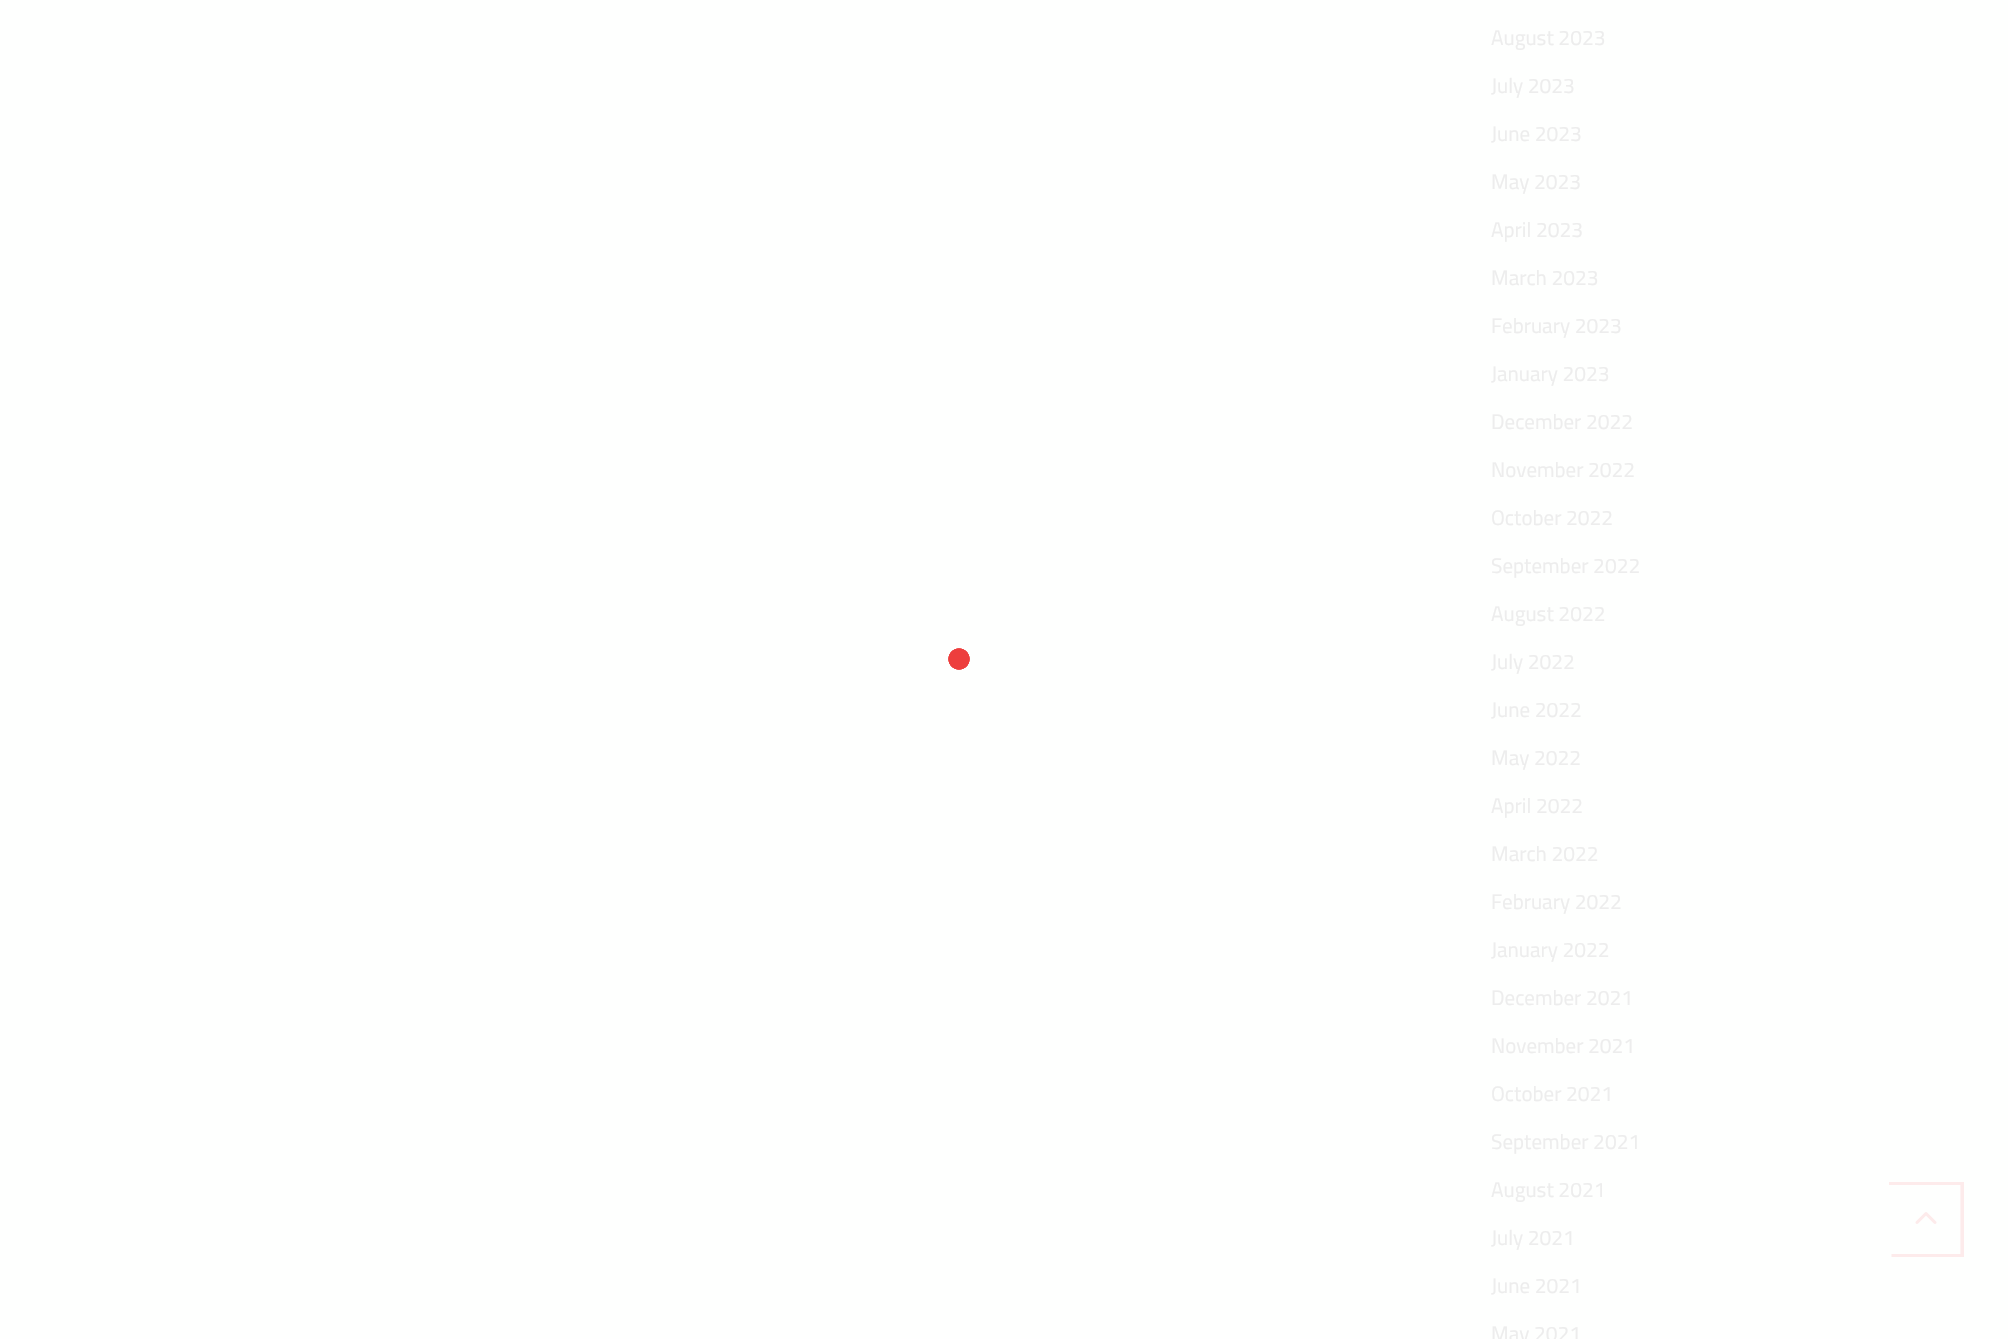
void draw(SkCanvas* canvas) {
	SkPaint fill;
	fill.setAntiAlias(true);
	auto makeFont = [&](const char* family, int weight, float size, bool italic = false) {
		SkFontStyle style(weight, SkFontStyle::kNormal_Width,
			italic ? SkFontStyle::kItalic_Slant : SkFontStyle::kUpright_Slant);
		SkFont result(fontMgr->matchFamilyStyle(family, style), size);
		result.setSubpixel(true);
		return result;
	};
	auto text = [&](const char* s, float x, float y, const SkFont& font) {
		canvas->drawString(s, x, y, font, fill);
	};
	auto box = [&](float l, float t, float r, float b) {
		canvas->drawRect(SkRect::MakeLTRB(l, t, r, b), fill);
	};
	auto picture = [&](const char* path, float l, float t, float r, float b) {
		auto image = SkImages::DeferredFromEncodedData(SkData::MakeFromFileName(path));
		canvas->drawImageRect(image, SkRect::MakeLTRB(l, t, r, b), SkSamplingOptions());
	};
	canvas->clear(0xFFFEFFFE);
	{
		const SkColor colors[] = {0xFFED3E3D, 0xFFFEFFFE};
		const float stops[] = {0.9f, 1};
		fill.setShader(SkGradientShader::MakeRadial({959, 659}, 11, colors, stops, 2, SkTileMode::kClamp));
		fill.setAlpha(255);
	}
	box(948, 648, 970, 670);
	{
		const SkColor colors[] = {0xFFED3E3D, 0x00ED3E3D};
		const float stops[] = {0.9f, 1};
		fill.setShader(SkGradientShader::MakeRadial({959, 659}, 11, colors, stops, 2, SkTileMode::kClamp));
		fill.setAlpha(255);
	}
	box(948, 648, 970, 670);
	box(948, 648, 970, 670);
	box(948, 648, 970, 670);
	picture("image0.png", 1915, 1212, 1937, 1224);
	canvas->save();
	canvas->clipRect(SkRect::MakeLTRB(1889, 1182, 1964, 1257));
	fill.setStyle(SkPaint::kStroke_Style);
	fill.setStrokeWidth(5.1f);
	fill.setShader(nullptr);
	fill.setColor(0xFFFDEBEB);
	canvas->drawPath(SkPathBuilder().moveTo(1889, 1182.5f).lineTo(1963, 1182.5f).lineTo(1963, 1256.5f).lineTo(1891.5f, 1256.5f).detach(), fill);
	canvas->restore();
	auto font1 = makeFont("Titillium Web", 400, 21);
	fill.setStyle(SkPaint::kFill_Style);
	fill.setColor(0xFFEDEDED);
	text("August 2023", 1491, 45, font1);
	text("July 2023", 1491, 93, font1);
	text("June 2023", 1491, 141, font1);
	text("May 2023", 1491, 189, font1);
	text("April 2023", 1491, 237, font1);
	text("March 2023", 1491, 285, font1);
	text("February 2023", 1491, 333, font1);
	text("January 2023", 1491, 381, font1);
	text("December 2022", 1491, 429, font1);
	text("November 2022", 1491, 477, font1);
	text("October 2022", 1491, 525, font1);
	text("September 2022", 1491, 573, font1);
	text("August 2022", 1491, 621, font1);
	text("July 2022", 1491, 669, font1);
	text("June 2022", 1491, 717, font1);
	text("May 2022", 1491, 765, font1);
	text("April 2022", 1491, 813, font1);
	text("March 2022", 1491, 861, font1);
	text("February 2022", 1491, 909, font1);
	text("January 2022", 1491, 957, font1);
	text("December 2021", 1491, 1005, font1);
	text("November 2021", 1491, 1053, font1);
	text("October 2021", 1491, 1101, font1);
	text("September 2021", 1491, 1149, font1);
	text("August 2021", 1491, 1197, font1);
	text("July 2021", 1491, 1245, font1);
	text("June 2021", 1491, 1293, font1);
	text("May 2021", 1491, 1341, font1);
}
